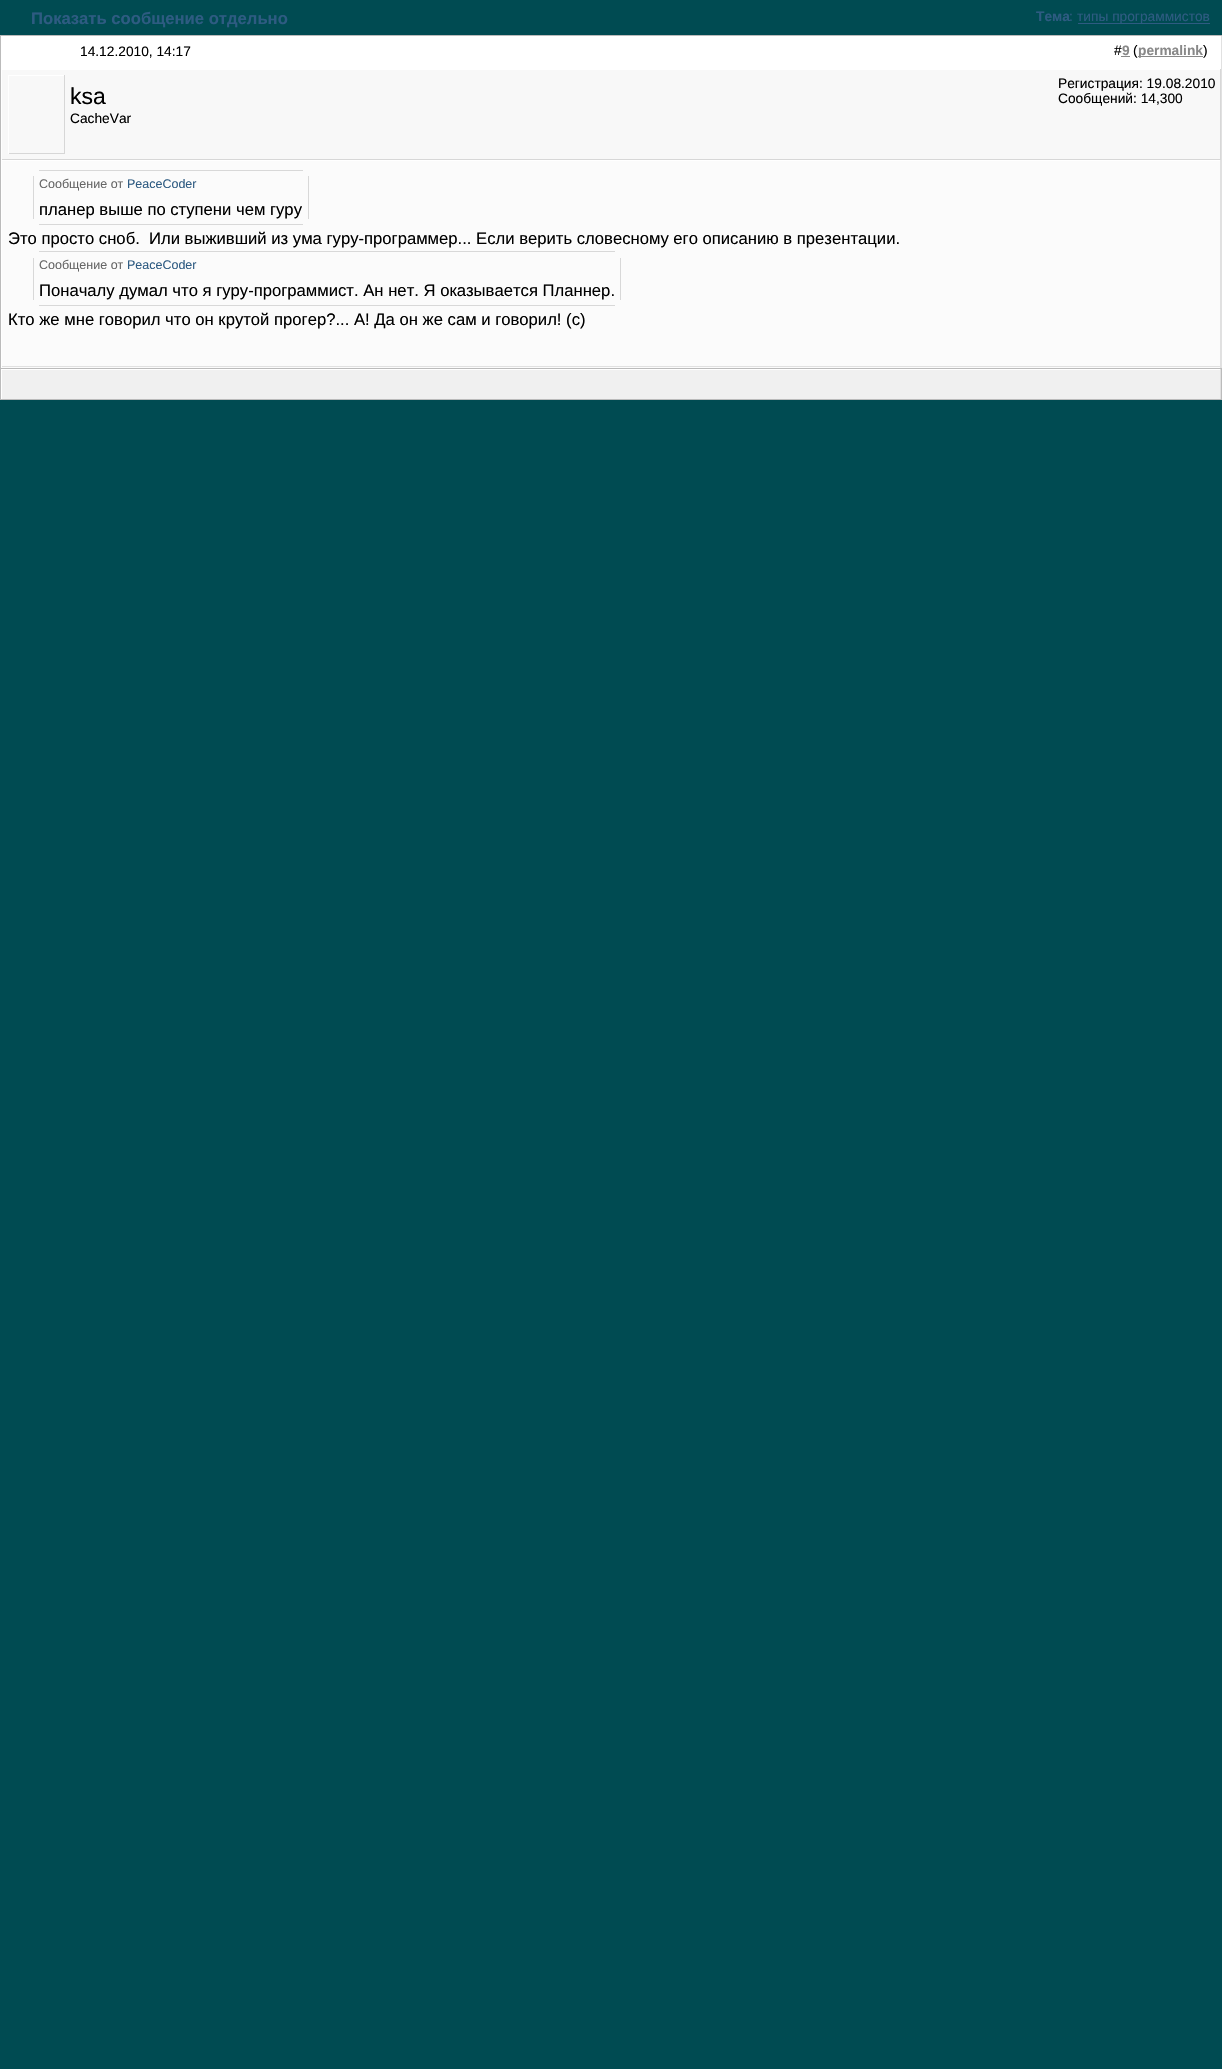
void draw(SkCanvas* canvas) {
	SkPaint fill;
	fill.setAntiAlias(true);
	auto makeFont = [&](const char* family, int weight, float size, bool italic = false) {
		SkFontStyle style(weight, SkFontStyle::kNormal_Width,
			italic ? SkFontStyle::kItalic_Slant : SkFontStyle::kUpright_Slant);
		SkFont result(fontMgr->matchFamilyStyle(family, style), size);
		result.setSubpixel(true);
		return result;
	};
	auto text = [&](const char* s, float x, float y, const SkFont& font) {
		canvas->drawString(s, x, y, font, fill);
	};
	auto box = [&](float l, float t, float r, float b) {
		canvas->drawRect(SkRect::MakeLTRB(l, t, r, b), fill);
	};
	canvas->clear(0xFF004B52);
	fill.setColor(0xFF2E5B82);
	box(1078, 23, 1210, 24);
	fill.setColor(0xFFE1E1E1);
	box(1221, 36, 1222, 368);
	fill.setStyle(SkPaint::kStroke_Style);
	fill.setStrokeWidth(1);
	fill.setColor(0xFFBBBBBB);
	canvas->drawRect(SkRect::MakeLTRB(0.5f, 35.5f, 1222.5f, 368.5f), fill);
	fill.setStyle(SkPaint::kFill_Style);
	fill.setColor(0xFFFFFFFF);
	box(1, 36, 1221, 70);
	fill.setColor(0xFF888888);
	box(1121, 56, 1130, 57);
	box(1138, 56, 1203, 57);
	fill.setColor(0xFFF8F8F8);
	box(2, 70, 1220, 159);
	fill.setColor(0xFFD7D7D7);
	box(1220, 69, 1221, 160);
	box(1, 159, 1221, 160);
	fill.setColor(0xFFFFFFFF);
	box(1, 69, 2, 160);
	box(8, 75, 65, 76);
	fill.setColor(0xFFD7D7D7);
	box(64, 75, 65, 154);
	box(8, 153, 65, 154);
	fill.setColor(0xFFFFFFFF);
	box(8, 75, 9, 154);
	fill.setColor(0xFFFBFBFB);
	box(2, 161, 1220, 368);
	fill.setColor(0xFFFFFFFF);
	box(1, 160, 1221, 161);
	fill.setColor(0xFFE0E0E0);
	box(1220, 160, 1221, 368);
	box(1, 366, 1221, 367);
	fill.setColor(0xFFFFFFFF);
	box(1, 160, 2, 368);
	fill.setColor(0xFFD8D8D8);
	box(39, 170, 303, 171);
	box(308, 176, 309, 219);
	box(33, 176, 34, 219);
	box(39, 224, 303, 225);
	box(39, 251, 615, 252);
	box(620, 258, 621, 300);
	box(33, 258, 34, 300);
	box(39, 305, 615, 306);
	fill.setColor(0xFFBBBBBB);
	box(1221, 369, 1222, 400);
	box(0, 399, 1222, 400);
	box(0, 369, 1, 400);
	fill.setColor(0xFFF0F0F0);
	box(2, 370, 1220, 399);
	fill.setColor(0xFFFFFFFF);
	box(1, 369, 1221, 370);
	fill.setColor(0xFFE0E0E0);
	box(1220, 369, 1221, 399);
	fill.setColor(0xFFFFFFFF);
	box(1, 369, 2, 399);
	auto font1 = makeFont("Liberation Sans", 700, 16.65f);
	fill.setColor(0xFF2E5B82);
	text("Показать сообщение отдельно", 31, 24, font1);
	auto font2 = makeFont("Liberation Sans", 700, 13.75f);
	text("Тема", 1036, 21, font2);
	auto font3 = makeFont("Liberation Sans", 400, 13.75f);
	text(":", 1069, 21, font3);
	text("типы программистов", 1077, 21, font3);
	fill.setColor(0xFF000000);
	text("14.12.2010, 14:17", 80, 56, font3);
	text("#", 1114, 55, font3);
	fill.setColor(0xFF888888);
	text("9", 1122, 55, font2);
	fill.setColor(0xFF000000);
	text("(", 1133, 55, font3);
	fill.setColor(0xFF888888);
	text("permalink", 1138, 55, font2);
	fill.setColor(0xFF000000);
	text(")", 1203, 55, font3);
	auto font4 = makeFont("Liberation Sans", 400, 23);
	text("ksa", 70, 104, font4);
	text("CacheVar", 70, 123, font3);
	text("Регистрация: 19.08.2010", 1058, 88, font3);
	text("Сообщений: 14,300", 1058, 103, font3);
	auto font5 = makeFont("Liberation Sans", 400, 12.5f);
	fill.setColor(0xFF666666);
	text("Сообщение от", 39, 188, font5);
	fill.setColor(0xFF2E5B82);
	text("PeaceCoder", 127, 188, font5);
	auto font6 = makeFont("Liberation Sans", 400, 16.65f);
	fill.setColor(0xFF000000);
	text("планер выше по ступени чем гуру", 39, 215, font6);
	text("Это просто сноб.", 8, 244, font6);
	text("Или выживший из ума гуру-программер... Если верить словесному его описанию в презентации.", 149, 244, font6);
	fill.setColor(0xFF666666);
	text("Сообщение от", 39, 269, font5);
	fill.setColor(0xFF2E5B82);
	text("PeaceCoder", 127, 269, font5);
	fill.setColor(0xFF000000);
	text("Поначалу думал что я гуру-программист. Ан нет. Я оказывается Планнер.", 39, 296, font6);
	text("Кто же мне говорил что он крутой прогер?... А! Да он же сам и говорил! (с)", 8, 325, font6);
}
